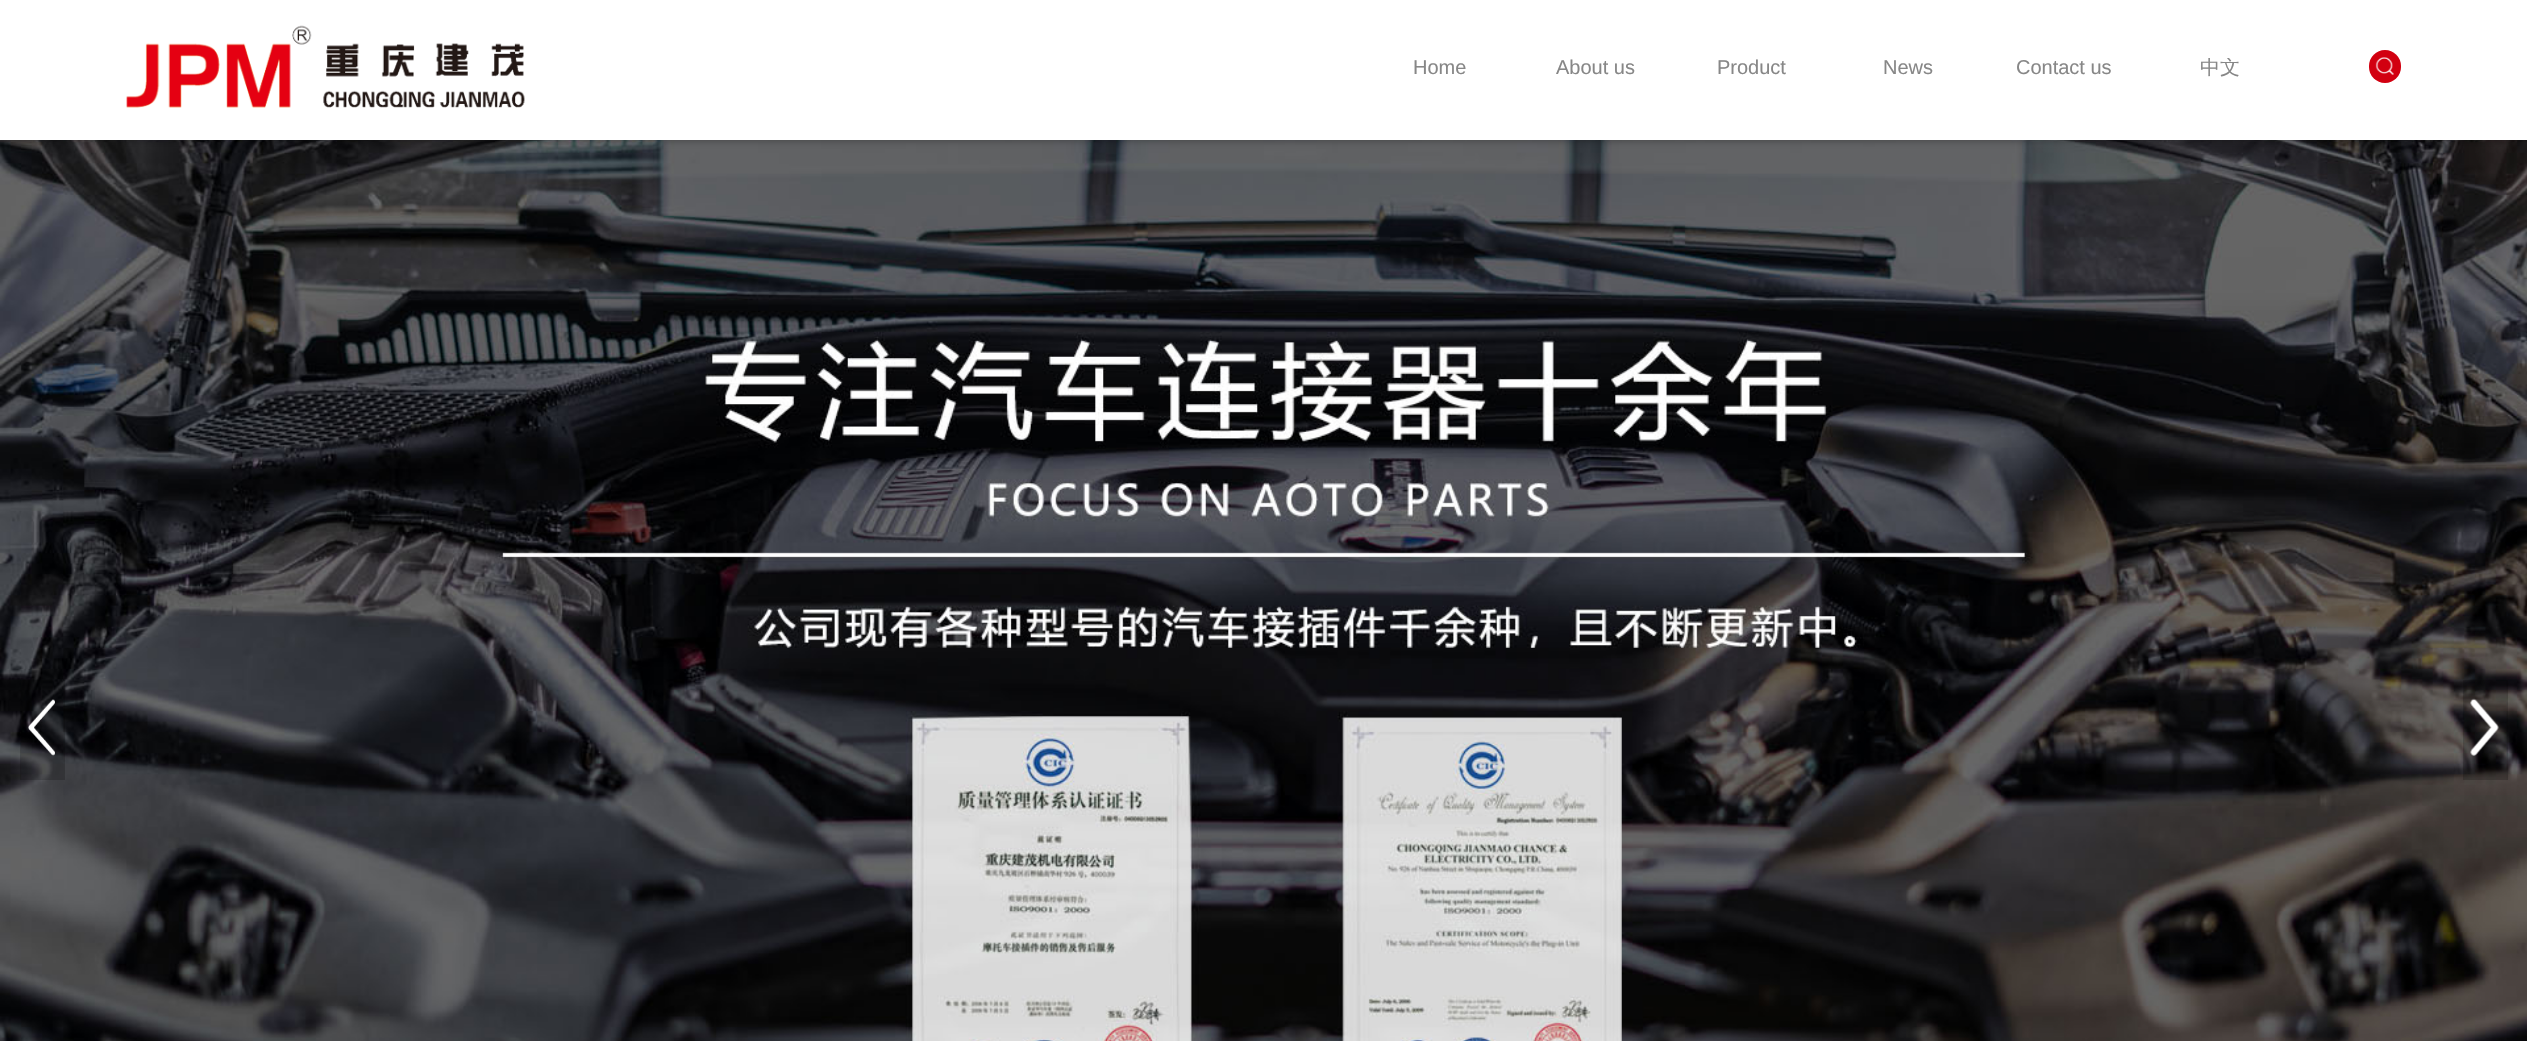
void draw(SkCanvas* canvas) {
	SkPaint fill;
	fill.setAntiAlias(true);
	auto makeFont = [&](const char* family, int weight, float size, bool italic = false) {
		SkFontStyle style(weight, SkFontStyle::kNormal_Width,
			italic ? SkFontStyle::kItalic_Slant : SkFontStyle::kUpright_Slant);
		SkFont result(fontMgr->matchFamilyStyle(family, style), size);
		result.setSubpixel(true);
		return result;
	};
	auto text = [&](const char* s, float x, float y, const SkFont& font) {
		canvas->drawString(s, x, y, font, fill);
	};
	auto box = [&](float l, float t, float r, float b) {
		canvas->drawRect(SkRect::MakeLTRB(l, t, r, b), fill);
	};
	auto roundBox = [&](float l, float t, float r, float b, float radius) {
		canvas->drawRoundRect(SkRect::MakeLTRB(l, t, r, b), radius, radius, fill);
	};
	auto picture = [&](const char* path, float l, float t, float r, float b) {
		auto image = SkImages::DeferredFromEncodedData(SkData::MakeFromFileName(path));
		canvas->drawImageRect(image, SkRect::MakeLTRB(l, t, r, b), SkSamplingOptions());
	};
	canvas->clear(0xFFFFFFFF);
	picture("image2.png", 0, 140, 2527, 1041);
	fill.setColor(0x57000000);
	fill.setMaskFilter(SkMaskFilter::MakeBlur(kNormal_SkBlurStyle, 4));
	canvas->drawRect(SkRect::MakeLTRB(0, 0, 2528, 140), fill);
	fill.setMaskFilter(nullptr);
	fill.setColor(0xFFFFFFFF);
	box(0, 0, 2527, 140);
	picture("image0.png", 126, 25, 525, 108);
	fill.setColor(0xFFD20010);
	roundBox(2369, 50, 2401, 83, 16);
	picture("image1.png", 2375, 57, 2394, 75);
	fill.setColor(0x33000000);
	box(20, 680, 65, 780);
	picture("image3.png", 28, 699, 55, 756);
	box(2463, 680, 2508, 780);
	picture("image4.png", 2470, 698, 2499, 756);
	auto font1 = makeFont("Liberation Sans", 400, 20);
	fill.setColor(0xFF878787);
	text("Home", 1413, 74, font1);
	text("About us", 1556, 74, font1);
	text("Product", 1717, 74, font1);
	text("News", 1883, 74, font1);
	text("Contact us", 2016, 74, font1);
	canvas->save();
	canvas->clipRect(SkRect::MakeLTRB(2173, 58, 2268, 105));
	auto font2 = makeFont("WenQuanYi Zen Hei", 500, 20);
	text("中文", 2200, 74, font2);
	canvas->restore();
}
